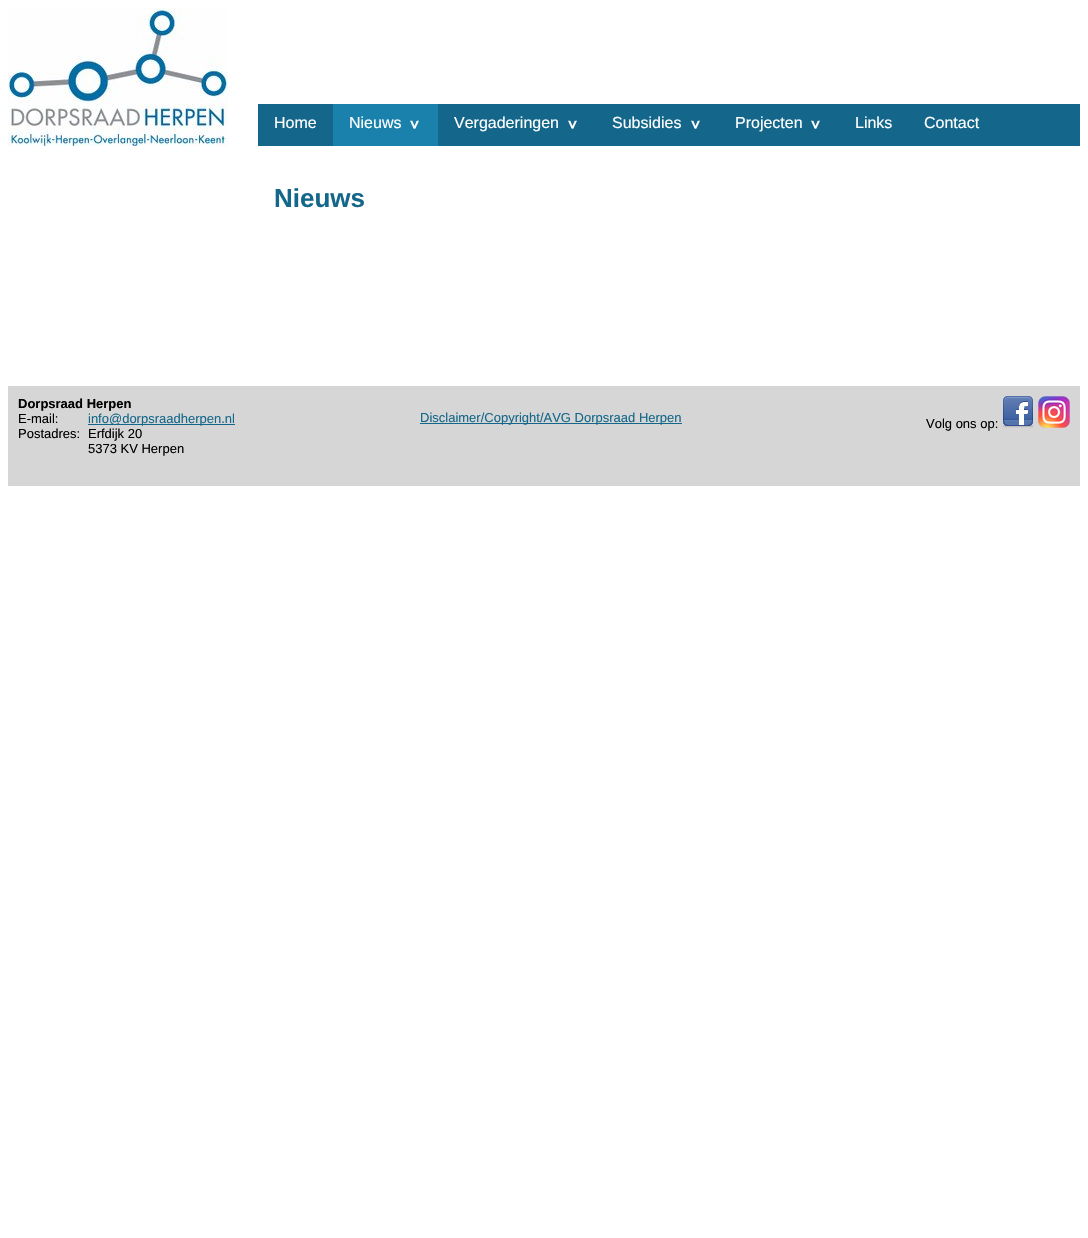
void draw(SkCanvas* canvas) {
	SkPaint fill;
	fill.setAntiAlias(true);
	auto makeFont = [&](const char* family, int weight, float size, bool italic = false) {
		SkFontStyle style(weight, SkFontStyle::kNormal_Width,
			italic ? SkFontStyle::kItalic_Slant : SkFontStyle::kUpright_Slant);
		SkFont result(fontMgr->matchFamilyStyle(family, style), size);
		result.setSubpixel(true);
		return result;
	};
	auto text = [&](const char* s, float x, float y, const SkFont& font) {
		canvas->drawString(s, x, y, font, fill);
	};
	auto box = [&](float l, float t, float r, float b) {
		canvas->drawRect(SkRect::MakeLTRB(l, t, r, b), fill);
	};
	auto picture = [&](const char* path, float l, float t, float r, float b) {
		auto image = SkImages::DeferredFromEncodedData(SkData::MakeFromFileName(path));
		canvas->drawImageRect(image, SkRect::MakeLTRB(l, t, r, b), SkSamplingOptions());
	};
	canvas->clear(0xFFFFFFFF);
	picture("image0.png", 8, 8, 228, 146);
	fill.setColor(0xFF14678A);
	box(258, 104, 1080, 146);
	fill.setColor(0xFF1981AC);
	box(333, 104, 438, 146);
	picture("image1.png", 410, 120, 419, 129);
	picture("image2.png", 568, 120, 577, 129);
	picture("image2.png", 691, 120, 700, 129);
	picture("image2.png", 811, 120, 820, 129);
	fill.setColor(0xFFD6D6D6);
	box(8, 386, 1080, 486);
	fill.setColor(0xFF14678A);
	box(88, 424, 235, 425);
	box(420, 423, 682, 424);
	picture("image3.png", 1002, 396, 1034, 428);
	picture("image4.png", 1038, 396, 1070, 428);
	auto font1 = makeFont("Liberation Sans", 400, 16);
	fill.setColor(0xFFFFFFFF);
	text("Home", 274, 128, font1);
	text("Nieuws", 349, 128, font1);
	text("Vergaderingen", 454, 128, font1);
	text("Subsidies", 612, 128, font1);
	text("Projecten", 735, 128, font1);
	text("Links", 855, 128, font1);
	text("Contact", 924, 128, font1);
	auto font2 = makeFont("Liberation Sans", 700, 26);
	fill.setColor(0xFF14678A);
	text("Nieuws", 274, 207, font2);
	auto font3 = makeFont("Liberation Sans", 700, 13);
	fill.setColor(0xFF000000);
	text("Dorpsraad Herpen", 18, 408, font3);
	auto font4 = makeFont("Liberation Sans", 400, 13);
	text("E-mail:", 18, 423, font4);
	fill.setColor(0xFF14678A);
	text("info@dorpsraadherpen.nl", 88, 423, font4);
	fill.setColor(0xFF000000);
	text("Postadres:", 18, 438, font4);
	text("Erfdijk 20", 88, 438, font4);
	text("5373 KV Herpen", 88, 453, font4);
	fill.setColor(0xFF14678A);
	text("Disclaimer/Copyright/AVG Dorpsraad Herpen", 420, 422, font4);
	fill.setColor(0xFF000000);
	text("Volg ons op:", 926, 428, font4);
}
